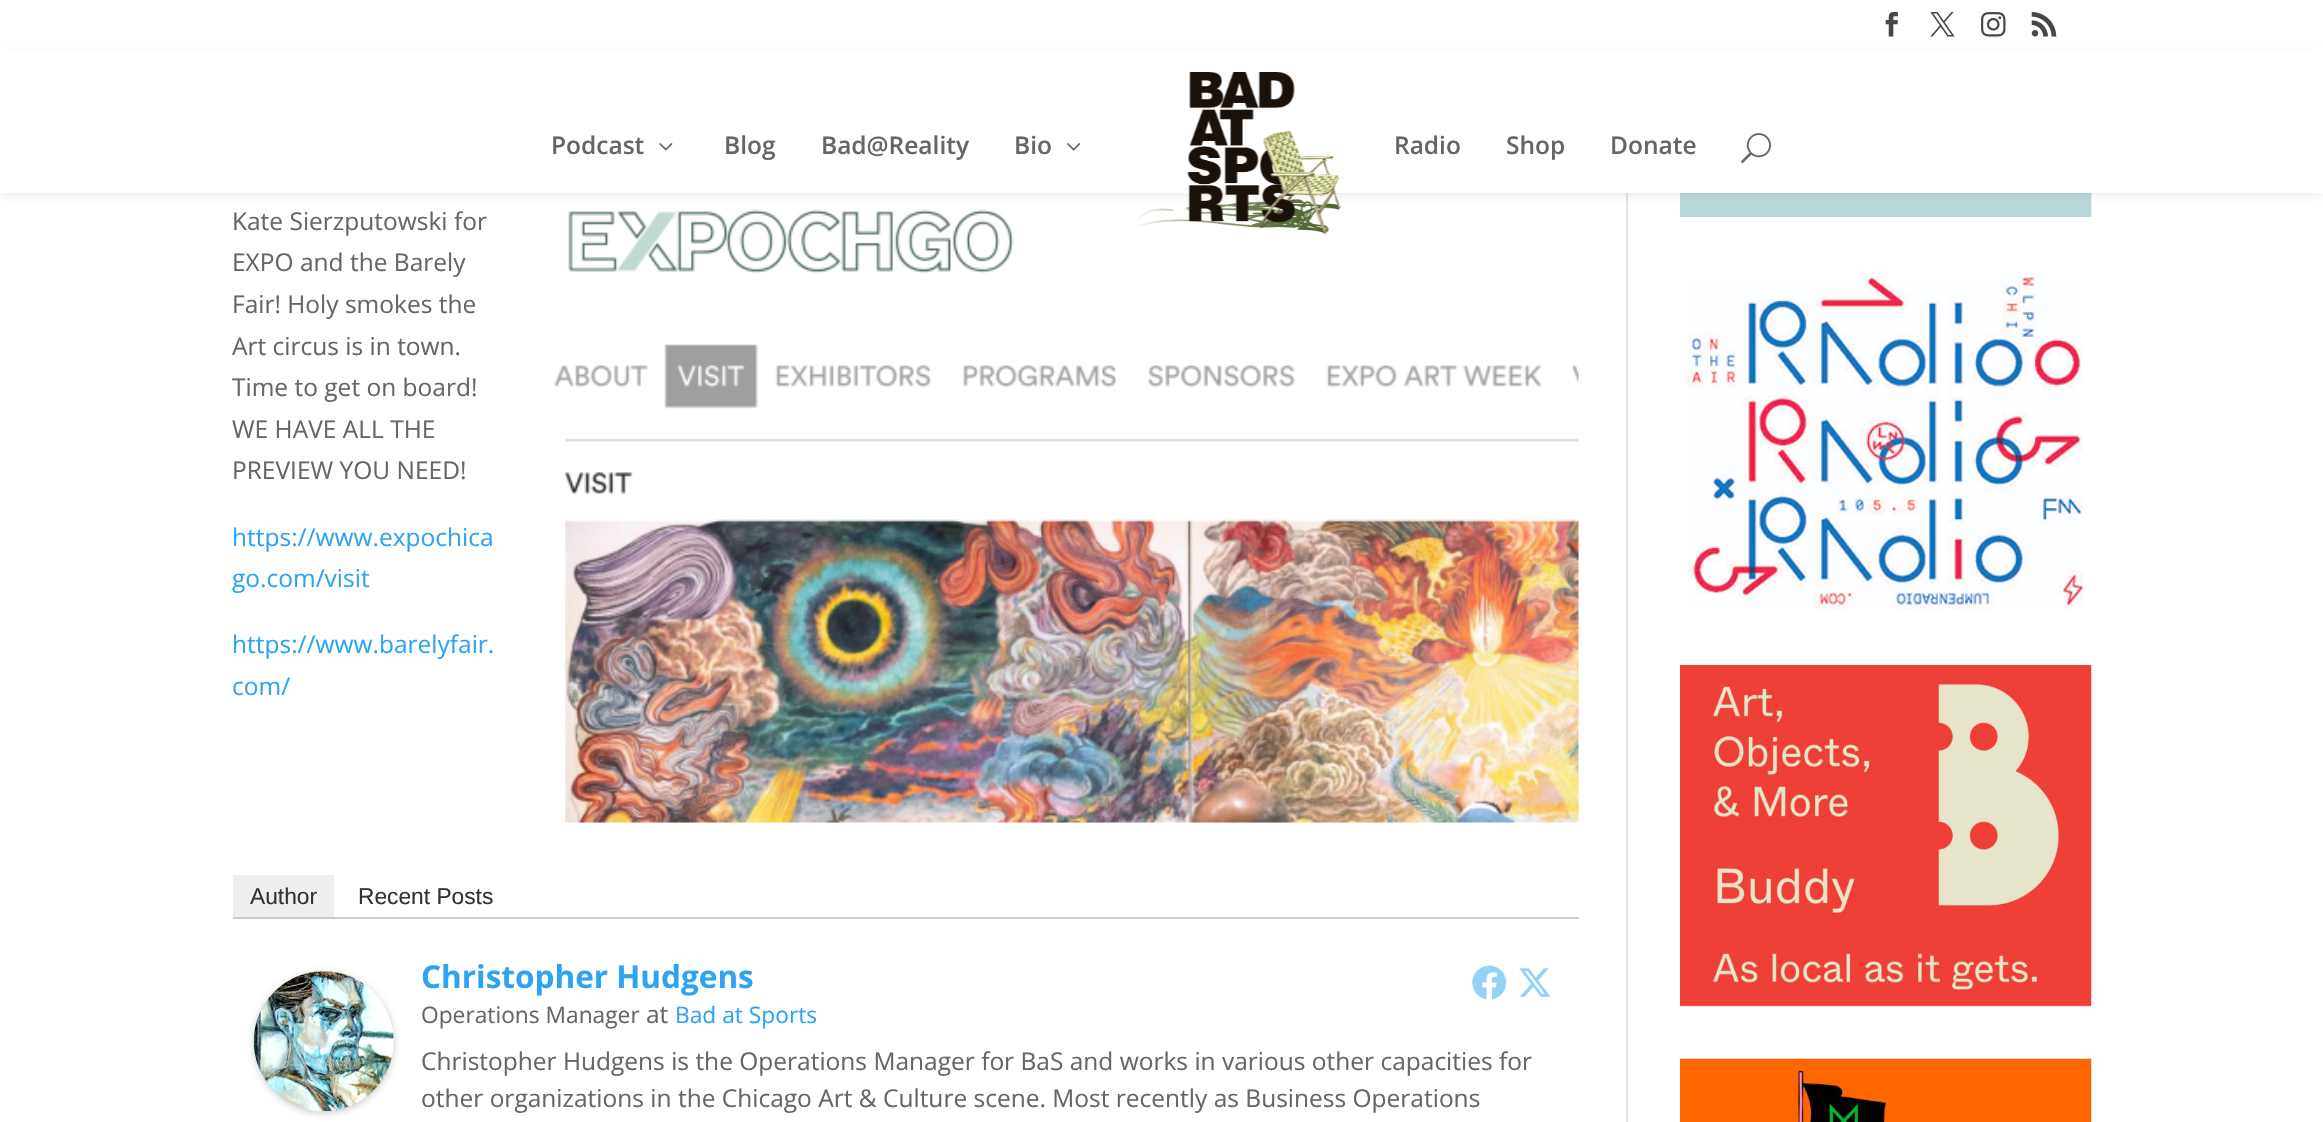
void draw(SkCanvas* canvas) {
	SkPaint fill;
	fill.setAntiAlias(true);
	auto makeFont = [&](const char* family, int weight, float size, bool italic = false) {
		SkFontStyle style(weight, SkFontStyle::kNormal_Width,
			italic ? SkFontStyle::kItalic_Slant : SkFontStyle::kUpright_Slant);
		SkFont result(fontMgr->matchFamilyStyle(family, style), size);
		result.setSubpixel(true);
		return result;
	};
	auto text = [&](const char* s, float x, float y, const SkFont& font) {
		canvas->drawString(s, x, y, font, fill);
	};
	auto box = [&](float l, float t, float r, float b) {
		canvas->drawRect(SkRect::MakeLTRB(l, t, r, b), fill);
	};
	auto picture = [&](const char* path, float l, float t, float r, float b) {
		auto image = SkImages::DeferredFromEncodedData(SkData::MakeFromFileName(path));
		canvas->drawImageRect(image, SkRect::MakeLTRB(l, t, r, b), SkSamplingOptions());
	};
	canvas->clear(0xFFFFFFFF);
	picture("image0.png", 1885, 12, 1898, 37);
	picture("image1.png", 1930, 12, 1955, 37);
	picture("image2.png", 1981, 12, 2006, 37);
	picture("image3.png", 2031, 12, 2057, 37);
	picture("image8.png", 554, 209, 1579, 823);
	picture("image12.png", 1680, 193, 2092, 217);
	fill.setColor(0xFFE2E2E2);
	box(1626, 193, 1628, 1122);
	fill.setColor(0x1A000000);
	fill.setMaskFilter(SkMaskFilter::MakeBlur(kNormal_SkBlurStyle, 6));
	canvas->drawRect(SkRect::MakeLTRB(0, 58, 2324, 193), fill);
	fill.setMaskFilter(nullptr);
	fill.setColor(0xFFFFFFFF);
	box(0, 50, 2323, 193);
	picture("image4.png", 659, 143, 673, 151);
	picture("image5.png", 1067, 143, 1081, 151);
	picture("image6.png", 1135, 72, 1341, 234);
	picture("image7.png", 1741, 133, 1771, 163);
	fill.setColor(0xFFCCCCCC);
	box(233, 917, 1579, 919);
	fill.setColor(0xFFEEEEEE);
	box(233, 875, 334, 917);
	fill.setColor(0x33000000);
	fill.setMaskFilter(SkMaskFilter::MakeBlur(kNormal_SkBlurStyle, 3.5f));
	canvas->drawRoundRect(SkRect::MakeLTRB(254, 973, 394, 1113), 70, 70, fill);
	fill.setMaskFilter(nullptr);
	picture("image9.png", 253, 971, 394, 1112);
	picture("image10.png", 1472, 965, 1507, 1000);
	picture("image11.png", 1519, 968, 1551, 997);
	picture("image13.png", 1687, 276, 2084, 610);
	picture("image14.png", 1680, 665, 2092, 1007);
	picture("image15.png", 1680, 1058, 2092, 1122);
	auto font1 = makeFont("Open Sans", 600, 24.5f);
	fill.setColor(0xFF666666);
	text("Podcast", 551, 154, font1);
	text("Blog", 724, 154, font1);
	text("Bad@Reality", 821, 154, font1);
	text("Bio", 1014, 154, font1);
	text("Radio", 1394, 154, font1);
	text("Shop", 1506, 154, font1);
	text("Donate", 1610, 154, font1);
	auto font2 = makeFont("Open Sans", 400, 24.5f);
	text("Kate Sierzputowski for", 232, 230, font2);
	text("EXPO and the Barely", 232, 271, font2);
	text("Fair! Holy smokes the", 232, 313, font2);
	text("Art circus is in town.", 232, 355, font2);
	text("Time to get on board!", 232, 396, font2);
	text("WE HAVE ALL THE", 232, 438, font2);
	text("PREVIEW YOU NEED!", 232, 479, font2);
	fill.setColor(0xFF2EA3F2);
	text("https://www.expochica", 232, 546, font2);
	text("go.com/visit", 232, 587, font2);
	text("https://www.barelyfair.", 232, 653, font2);
	text("com/", 232, 695, font2);
	auto font3 = makeFont("Liberation Sans", 400, 22.75f);
	fill.setColor(0xFF333333);
	text("Author", 250, 904, font3);
	text("Recent Posts", 358, 904, font3);
	auto font4 = makeFont("Open Sans", 700, 31.5f);
	fill.setColor(0xFF2EA3F2);
	text("Christopher Hudgens", 421, 988, font4);
	auto font5 = makeFont("Open Sans", 400, 22.75f);
	fill.setColor(0xFF666666);
	text("Operations Manager", 421, 1023, font5);
	text("at", 646, 1023, font2);
	fill.setColor(0xFF2EA3F2);
	text("Bad at Sports", 675, 1023, font5);
	fill.setColor(0xFF666666);
	text("Christopher Hudgens is the Operations Manager for BaS and works in various other capacities for", 421, 1070, font2);
	text("other organizations in the Chicago Art & Culture scene. Most recently as Business Operations", 421, 1107, font2);
}
